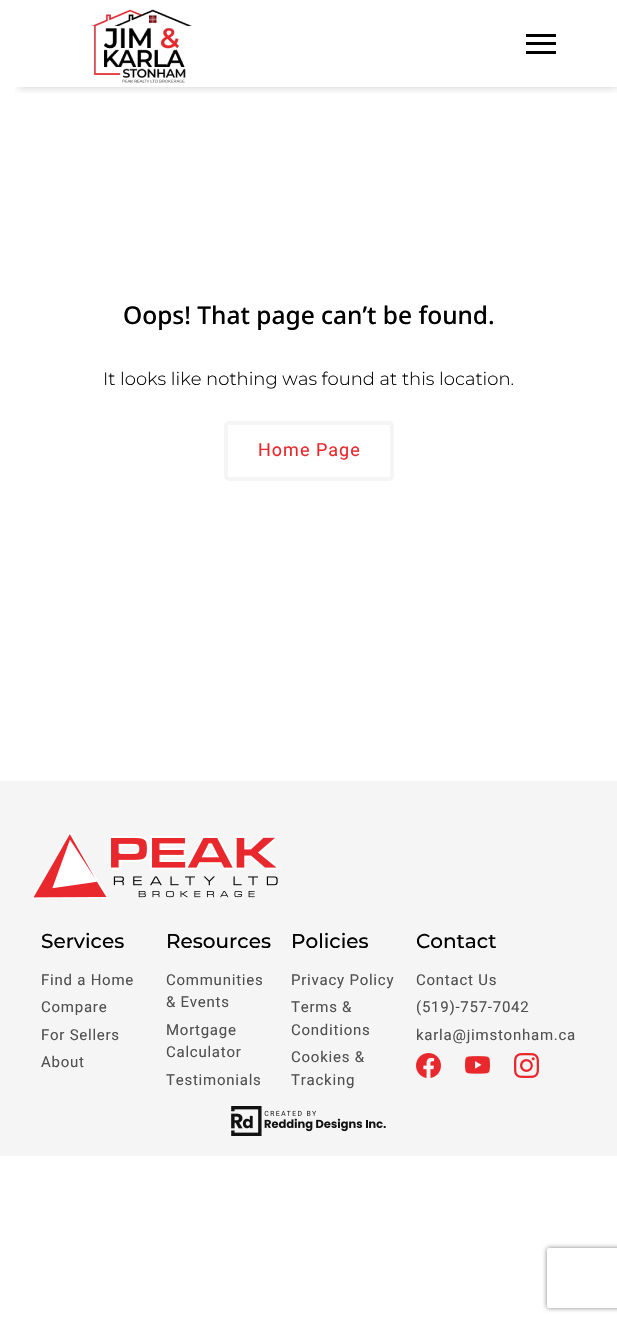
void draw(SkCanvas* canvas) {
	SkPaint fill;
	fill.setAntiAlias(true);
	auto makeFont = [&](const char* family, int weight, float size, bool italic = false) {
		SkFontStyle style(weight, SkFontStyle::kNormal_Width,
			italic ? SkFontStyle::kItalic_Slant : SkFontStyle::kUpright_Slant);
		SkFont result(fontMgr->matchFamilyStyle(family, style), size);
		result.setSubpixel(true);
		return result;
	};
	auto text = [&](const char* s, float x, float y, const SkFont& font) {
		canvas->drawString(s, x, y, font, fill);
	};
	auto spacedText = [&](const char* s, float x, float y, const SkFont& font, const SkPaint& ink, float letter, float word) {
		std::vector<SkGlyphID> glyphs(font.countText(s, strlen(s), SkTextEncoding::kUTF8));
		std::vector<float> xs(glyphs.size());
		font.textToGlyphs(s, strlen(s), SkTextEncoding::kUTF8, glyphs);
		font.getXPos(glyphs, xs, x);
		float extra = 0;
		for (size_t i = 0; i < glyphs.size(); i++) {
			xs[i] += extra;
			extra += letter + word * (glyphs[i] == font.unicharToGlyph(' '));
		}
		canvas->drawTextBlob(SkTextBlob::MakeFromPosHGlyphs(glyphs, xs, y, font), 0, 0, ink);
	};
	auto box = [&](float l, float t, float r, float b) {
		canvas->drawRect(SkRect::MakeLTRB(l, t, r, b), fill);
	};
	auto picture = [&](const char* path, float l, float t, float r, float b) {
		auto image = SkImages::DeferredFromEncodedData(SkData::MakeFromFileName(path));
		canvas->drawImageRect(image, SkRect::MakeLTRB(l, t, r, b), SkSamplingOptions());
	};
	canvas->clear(0xFFFFFFFF);
	canvas->save();
	canvas->clipRect(SkRect::MakeLTRB(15, 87, 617, 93));
	fill.setColor(0x33000000);
	fill.setMaskFilter(SkMaskFilter::MakeBlur(kNormal_SkBlurStyle, 4.5f));
	canvas->drawRect(SkRect::MakeLTRB(18, 18, 617, 87), fill);
	fill.setMaskFilter(nullptr);
	canvas->restore();
	picture("image0.png", 91, 9, 192, 83);
	fill.setColor(0xFF010101);
	box(526, 34, 556, 37);
	box(526, 42, 556, 45);
	box(526, 51, 556, 54);
	fill.setStyle(SkPaint::kStroke_Style);
	fill.setStrokeWidth(4);
	fill.setColor(0xFFF5F5F5);
	canvas->drawRoundRect(SkRect::MakeLTRB(226, 423, 392, 479), 3, 3, fill);
	fill.setStyle(SkPaint::kFill_Style);
	box(0, 781, 617, 1156);
	picture("image1.png", 31, 831, 281, 899);
	picture("image2.png", 416, 1053, 441, 1078);
	picture("image3.png", 465, 1056, 490, 1074);
	picture("image4.png", 514, 1053, 539, 1078);
	picture("image5.png", 231, 1106, 386, 1136);
	canvas->save();
	canvas->clipPath(SkPathBuilder(SkPathFillType::kEvenOdd).moveTo(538, 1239).lineTo(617, 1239).lineTo(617, 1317).lineTo(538, 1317).close().moveTo(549, 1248).lineTo(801, 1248).cubicTo(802, 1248, 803, 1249, 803, 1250).lineTo(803, 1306).cubicTo(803, 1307, 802, 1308, 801, 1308).lineTo(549, 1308).cubicTo(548, 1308, 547, 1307, 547, 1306).lineTo(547, 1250).cubicTo(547, 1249, 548, 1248, 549, 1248).close().detach(), true);
	fill.setColor(0xFF808080);
	fill.setMaskFilter(SkMaskFilter::MakeBlur(kNormal_SkBlurStyle, 2.5f));
	canvas->drawRoundRect(SkRect::MakeLTRB(547, 1248, 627, 1308), 2, 2, fill);
	fill.setMaskFilter(nullptr);
	canvas->restore();
	auto font1 = makeFont("Noto Sans", 500, 24.5f);
	fill.setColor(0xFF010101);
	text("Oops! That page can’t be found.", 123, 324, font1);
	auto font2 = makeFont("Montserrat", 300, 18);
	text("It looks like nothing was found at this location.", 103, 385, font2);
	auto font3 = makeFont("Heebo", 400, 18);
	fill.setColor(0xFFE8282D);
	spacedText("Home Page", 258, 456, font3, fill, 1, 0);
	auto font4 = makeFont("Montserrat", 500, 20);
	fill.setColor(0xFF010101);
	text("Services", 41, 948, font4);
	auto font5 = makeFont("Heebo", 400, 15);
	fill.setColor(0xFF505050);
	spacedText("Find a Home", 41, 985, font5, fill, 0.75f, 0);
	spacedText("Compare", 41, 1012, font5, fill, 0.75f, 0);
	spacedText("For Sellers", 41, 1040, font5, fill, 0.75f, 0);
	spacedText("About", 41, 1067, font5, fill, 0.75f, 0);
	fill.setColor(0xFF010101);
	text("Resources", 166, 948, font4);
	fill.setColor(0xFF505050);
	spacedText("Communities", 166, 985, font5, fill, 0.75f, 0);
	spacedText("& Events", 166, 1007, font5, fill, 0.75f, 0);
	spacedText("Mortgage", 166, 1035, font5, fill, 0.75f, 0);
	spacedText("Calculator", 166, 1057, font5, fill, 0.75f, 0);
	spacedText("Testimonials", 166, 1085, font5, fill, 0.75f, 0);
	fill.setColor(0xFF010101);
	text("Policies", 291, 948, font4);
	fill.setColor(0xFF505050);
	spacedText("Privacy Policy", 291, 985, font5, fill, 0.75f, 0);
	spacedText("Terms &", 291, 1012, font5, fill, 0.75f, 0);
	spacedText("Conditions", 291, 1035, font5, fill, 0.75f, 0);
	spacedText("Cookies &", 291, 1062, font5, fill, 0.75f, 0);
	spacedText("Tracking", 291, 1085, font5, fill, 0.75f, 0);
	fill.setColor(0xFF010101);
	text("Contact", 416, 948, font4);
	fill.setColor(0xFF505050);
	spacedText("Contact Us", 416, 985, font5, fill, 0.75f, 0);
	spacedText("(519)-757-7042", 416, 1012, font5, fill, 0.75f, 0);
	spacedText("karla@jimstonham.ca", 416, 1040, font5, fill, 0.75f, 0);
}
